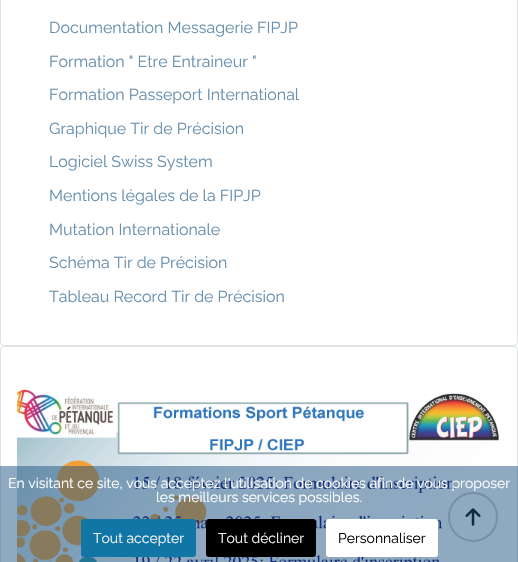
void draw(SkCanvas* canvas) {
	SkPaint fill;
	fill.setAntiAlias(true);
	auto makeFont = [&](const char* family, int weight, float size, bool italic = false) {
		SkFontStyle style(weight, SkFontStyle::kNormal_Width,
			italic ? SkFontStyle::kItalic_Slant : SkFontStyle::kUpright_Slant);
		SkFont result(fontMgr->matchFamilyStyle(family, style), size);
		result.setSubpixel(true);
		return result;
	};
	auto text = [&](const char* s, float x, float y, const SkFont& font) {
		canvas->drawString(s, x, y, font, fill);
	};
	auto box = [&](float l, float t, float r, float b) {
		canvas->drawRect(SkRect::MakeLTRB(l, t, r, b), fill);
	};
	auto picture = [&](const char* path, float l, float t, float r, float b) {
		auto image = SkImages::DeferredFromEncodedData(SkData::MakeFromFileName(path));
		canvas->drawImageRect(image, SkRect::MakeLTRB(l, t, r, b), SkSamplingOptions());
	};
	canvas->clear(0xFFFFFFFF);
	fill.setStyle(SkPaint::kStroke_Style);
	fill.setStrokeWidth(1);
	fill.setColor(0xFFDFE3E7);
	canvas->drawRoundRect(SkRect::MakeLTRB(0.5f, -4.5f, 517.5f, 345.5f), 3.5f, 3.5f, fill);
	canvas->drawRoundRect(SkRect::MakeLTRB(0.5f, 346.5f, 517.5f, 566.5f), 3.5f, 3.5f, fill);
	picture("image0.png", 17, 388, 499, 562);
	fill.setStrokeWidth(2);
	fill.setColor(0xFFCCCCCC);
	canvas->drawCircle(473, 517, 24, fill);
	picture("image1.png", 465, 508, 481, 526);
	fill.setStyle(SkPaint::kFill_Style);
	fill.setColor(0x801D5382);
	box(0, 466, 518, 562);
	fill.setColor(0xFF1176A6);
	canvas->drawRoundRect(SkRect::MakeLTRB(82, 520, 195, 556), 2, 2, fill);
	fill.setStyle(SkPaint::kStroke_Style);
	canvas->drawRoundRect(SkRect::MakeLTRB(82, 520, 195, 556), 2, 2, fill);
	fill.setStyle(SkPaint::kFill_Style);
	fill.setColor(0xFF000000);
	canvas->drawRoundRect(SkRect::MakeLTRB(207, 520, 315, 556), 2, 2, fill);
	fill.setStyle(SkPaint::kStroke_Style);
	canvas->drawRoundRect(SkRect::MakeLTRB(207, 520, 315, 556), 2, 2, fill);
	fill.setStyle(SkPaint::kFill_Style);
	fill.setColor(0xFFFFFFFF);
	canvas->drawRoundRect(SkRect::MakeLTRB(327, 520, 437, 556), 2, 2, fill);
	fill.setStyle(SkPaint::kStroke_Style);
	canvas->drawRoundRect(SkRect::MakeLTRB(327, 520, 437, 556), 2, 2, fill);
	auto font1 = makeFont("Raleway", 400, 16);
	fill.setStyle(SkPaint::kFill_Style);
	fill.setColor(0xFF688FAD);
	text("Documentation Messagerie FIPJP", 49, 33, font1);
	text("Formation \" Etre Entraineur \"", 49, 67, font1);
	text("Formation Passeport International", 49, 100, font1);
	text("Graphique Tir de Précision", 49, 134, font1);
	text("Logiciel Swiss System", 49, 167, font1);
	text("Mentions légales de la FIPJP", 49, 201, font1);
	text("Mutation Internationale", 49, 235, font1);
	text("Schéma Tir de Précision", 49, 268, font1);
	text("Tableau Record Tir de Précision", 49, 302, font1);
	auto font2 = makeFont("Raleway", 400, 14);
	fill.setColor(0xFFFFFFFF);
	text("En visitant ce site, vous acceptez l'utilisation de cookies afin de vous proposer", 8, 488, font2);
	text("les meilleurs services possibles.", 156, 502, font2);
	fill.setColor(0xFFF5F5F5);
	text("Tout accepter", 93, 543, font2);
	text("Tout décliner", 218, 543, font2);
	fill.setColor(0xFF000000);
	text("Personnaliser", 338, 543, font2);
}
